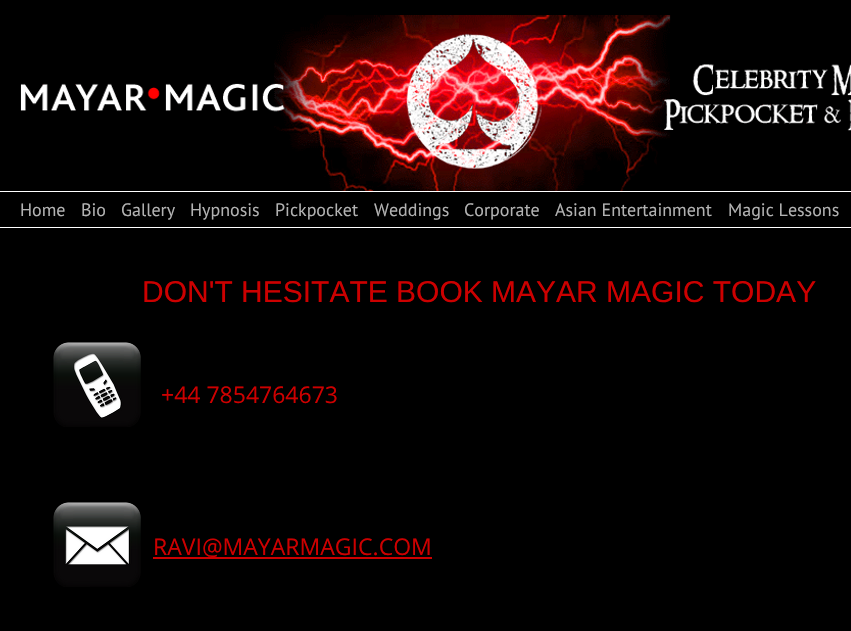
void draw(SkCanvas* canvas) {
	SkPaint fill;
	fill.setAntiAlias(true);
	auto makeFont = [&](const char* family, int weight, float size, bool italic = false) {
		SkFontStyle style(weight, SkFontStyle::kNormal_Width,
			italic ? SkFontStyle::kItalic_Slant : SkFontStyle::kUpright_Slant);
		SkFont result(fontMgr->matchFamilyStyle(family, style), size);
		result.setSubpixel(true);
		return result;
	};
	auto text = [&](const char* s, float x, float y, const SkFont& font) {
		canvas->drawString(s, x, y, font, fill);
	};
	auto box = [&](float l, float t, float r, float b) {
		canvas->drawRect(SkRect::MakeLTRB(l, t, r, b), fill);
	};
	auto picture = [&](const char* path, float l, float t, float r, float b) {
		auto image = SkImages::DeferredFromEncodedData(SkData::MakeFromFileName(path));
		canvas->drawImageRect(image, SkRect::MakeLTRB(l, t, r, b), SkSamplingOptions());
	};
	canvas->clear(0xFF000000);
	picture("image0.png", 20, 15, 851, 191);
	fill.setColor(0xFFFFFFFF);
	box(0, 191, 851, 192);
	box(0, 227, 851, 228);
	picture("image1.png", 53, 342, 141, 427);
	picture("image2.png", 53, 502, 141, 587);
	fill.setColor(0xFFCC0000);
	box(153, 557, 432, 559);
	auto font1 = makeFont("PT Sans", 400, 18);
	fill.setColor(0xFFB2B2B2);
	text("Home", 20, 216, font1);
	text("Bio", 81, 216, font1);
	text("Gallery", 121, 216, font1);
	text("Hypnosis", 190, 216, font1);
	text("Pickpocket", 275, 216, font1);
	text("Weddings", 374, 216, font1);
	text("Corporate", 464, 216, font1);
	text("Asian Entertainment", 555, 216, font1);
	text("Magic Lessons", 728, 216, font1);
	auto font2 = makeFont("Liberation Sans", 400, 30);
	fill.setColor(0xFFCC0000);
	text("DON'T HESITATE BOOK MAYAR MAGIC TODAY", 142, 302, font2);
	auto font3 = makeFont("Open Sans", 400, 23);
	text("+44 7854764673", 161, 403, font3);
	text("RAVI@MAYARMAGIC.COM", 153, 555, font3);
}
